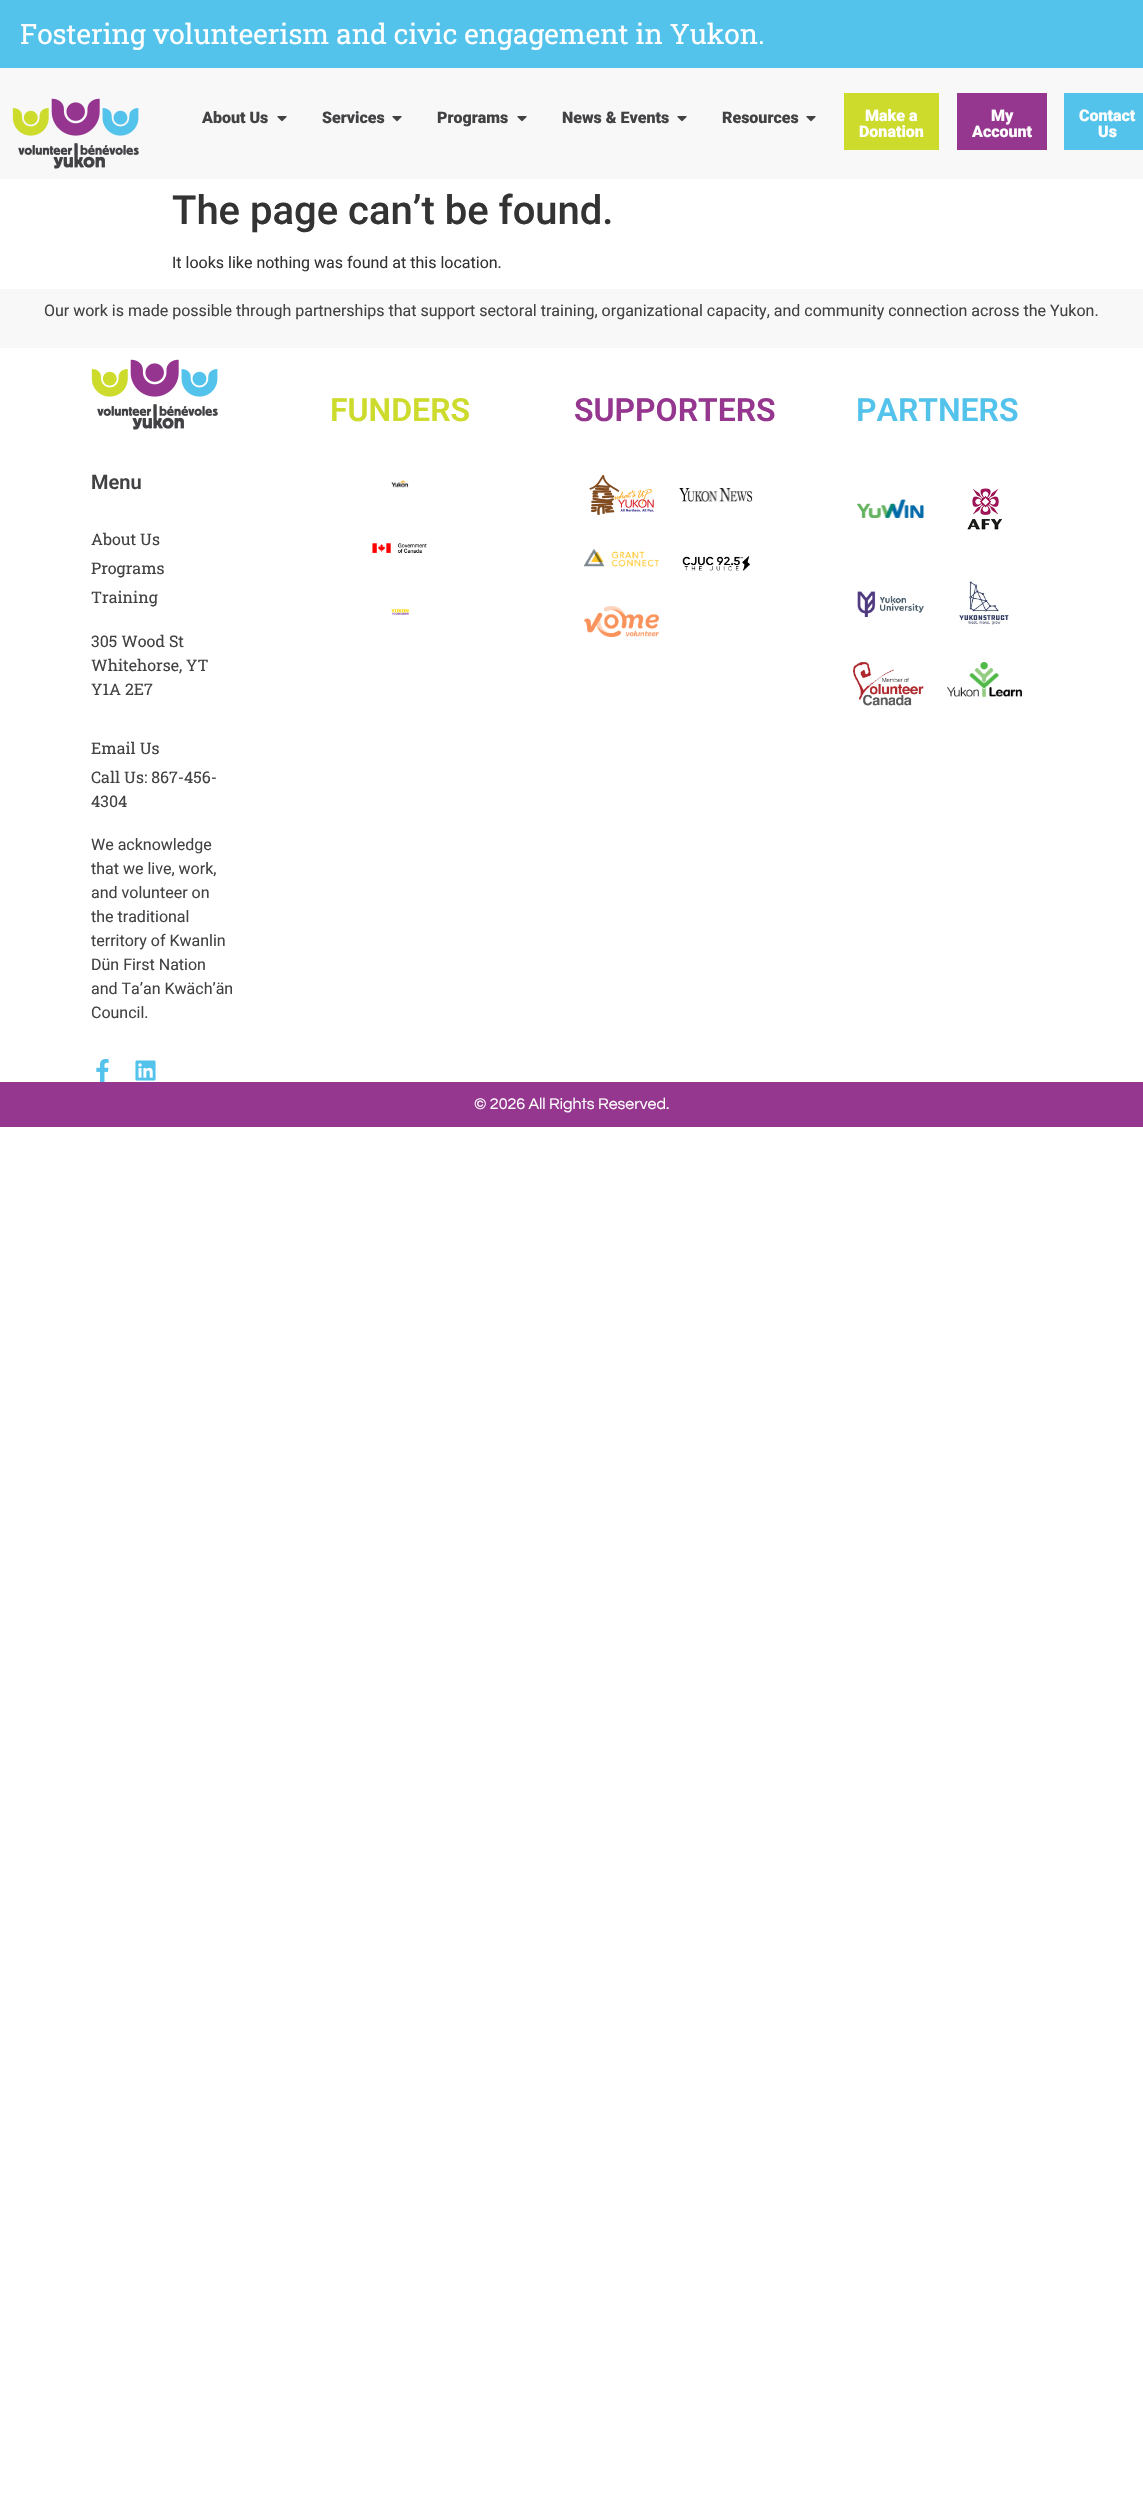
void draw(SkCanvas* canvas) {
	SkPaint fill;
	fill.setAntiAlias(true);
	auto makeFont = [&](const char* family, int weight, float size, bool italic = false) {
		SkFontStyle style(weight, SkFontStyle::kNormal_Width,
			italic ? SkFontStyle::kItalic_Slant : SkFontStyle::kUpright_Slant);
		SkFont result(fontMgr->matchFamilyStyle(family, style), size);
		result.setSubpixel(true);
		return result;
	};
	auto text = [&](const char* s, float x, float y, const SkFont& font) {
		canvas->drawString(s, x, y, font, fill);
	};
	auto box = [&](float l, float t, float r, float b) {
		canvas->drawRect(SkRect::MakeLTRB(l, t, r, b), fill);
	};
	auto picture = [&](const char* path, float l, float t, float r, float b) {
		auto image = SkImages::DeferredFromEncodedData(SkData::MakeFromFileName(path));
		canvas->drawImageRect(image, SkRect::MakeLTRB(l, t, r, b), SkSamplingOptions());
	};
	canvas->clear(0xFFFFFFFF);
	fill.setColor(0xFF54C3EB);
	box(0, 0, 1143, 68);
	fill.setColor(0xFFF8F8F8);
	box(0, 68, 1143, 179);
	picture("image0.png", 12, 98, 139, 169);
	picture("image1.png", 277, 116, 287, 122);
	picture("image1.png", 392, 116, 402, 122);
	picture("image1.png", 517, 116, 527, 122);
	picture("image1.png", 677, 116, 687, 122);
	picture("image1.png", 806, 116, 816, 122);
	fill.setColor(0xFFCCDB2C);
	box(844, 93, 939, 150);
	fill.setColor(0xFF95368F);
	box(957, 93, 1047, 150);
	fill.setColor(0xFF54C3EB);
	box(1064, 93, 1143, 150);
	fill.setColor(0xFFF8F8F8);
	box(0, 289, 1143, 348);
	picture("image2.png", 391, 480, 409, 488);
	picture("image3.png", 372, 543, 427, 554);
	picture("image4.png", 391, 609, 409, 615);
	picture("image5.png", 589, 475, 654, 515);
	picture("image6.png", 679, 488, 753, 502);
	picture("image7.png", 584, 549, 659, 567);
	picture("image8.png", 682, 556, 750, 571);
	picture("image9.png", 584, 606, 659, 637);
	picture("image10.png", 857, 499, 925, 518);
	picture("image11.png", 967, 488, 1002, 530);
	picture("image12.png", 857, 591, 924, 618);
	picture("image13.png", 959, 580, 1009, 628);
	picture("image14.png", 853, 662, 924, 706);
	picture("image15.png", 947, 662, 1022, 697);
	picture("image16.png", 91, 359, 218, 430);
	picture("image17.png", 96, 1059, 109, 1082);
	picture("image18.png", 135, 1060, 156, 1081);
	fill.setColor(0xFF95368F);
	box(0, 1082, 1143, 1127);
	auto font1 = makeFont("Roboto Slab", 400, 28);
	fill.setColor(0xFFFFFFFF);
	text("Fostering volunteerism and civic engagement in Yukon.", 20, 44, font1);
	auto font2 = makeFont("Roboto", 900, 16);
	fill.setColor(0xFF424144);
	text("About Us", 202, 123, font2);
	text("Services", 322, 123, font2);
	text("Programs", 437, 123, font2);
	text("News & Events", 562, 123, font2);
	text("Resources", 722, 123, font2);
	fill.setColor(0xFFFFFFFF);
	text("Make a", 865, 121, font2);
	text("Donation", 859, 137, font2);
	text("My", 991, 121, font2);
	text("Account", 972, 137, font2);
	text("Contact", 1079, 121, font2);
	text("Us", 1098, 137, font2);
	auto font3 = makeFont("Roboto", 500, 40);
	fill.setColor(0xFF333333);
	text("The page can’t be found.", 172, 224, font3);
	auto font4 = makeFont("Roboto", 400, 16);
	text("It looks like nothing was found at this location.", 172, 268, font4);
	fill.setColor(0xFF424144);
	text("Our work is made possible through partnerships that support sectoral training, organizational capacity, and community connection across the Yukon.", 44, 316, font4);
	auto font5 = makeFont("Roboto", 600, 32);
	fill.setColor(0xFFCCDB2C);
	text("FUNDERS", 330, 421, font5);
	fill.setColor(0xFF95368F);
	text("SUPPORTERS", 574, 421, font5);
	fill.setColor(0xFF54C3EB);
	text("PARTNERS", 856, 421, font5);
	auto font6 = makeFont("Roboto", 600, 20);
	fill.setColor(0xFF424144);
	text("Menu", 91, 489, font6);
	auto font7 = makeFont("Roboto Slab", 400, 16);
	text("About Us", 91, 545, font7);
	text("Programs", 91, 574, font7);
	text("Training", 91, 603, font7);
	text("305 Wood St", 91, 647, font7);
	text("Whitehorse, YT", 91, 671, font7);
	text("Y1A 2E7", 91, 695, font7);
	text("Email Us", 91, 754, font7);
	text("Call Us: 867-456-", 91, 783, font7);
	text("4304", 91, 807, font7);
	text("We acknowledge", 91, 850, font4);
	text("that we live, work,", 91, 874, font4);
	text("and volunteer on", 91, 898, font4);
	text("the traditional", 91, 922, font4);
	text("territory of Kwanlin", 91, 946, font4);
	text("Dün First Nation", 91, 970, font4);
	text("and Ta’an Kwäch’än", 91, 994, font4);
	text("Council.", 91, 1018, font4);
	auto font8 = makeFont("Questrial", 400, 16);
	fill.setColor(0xFFFFFFFF);
	text("© 2026 All Rights Reserved.", 474, 1109, font8);
}
